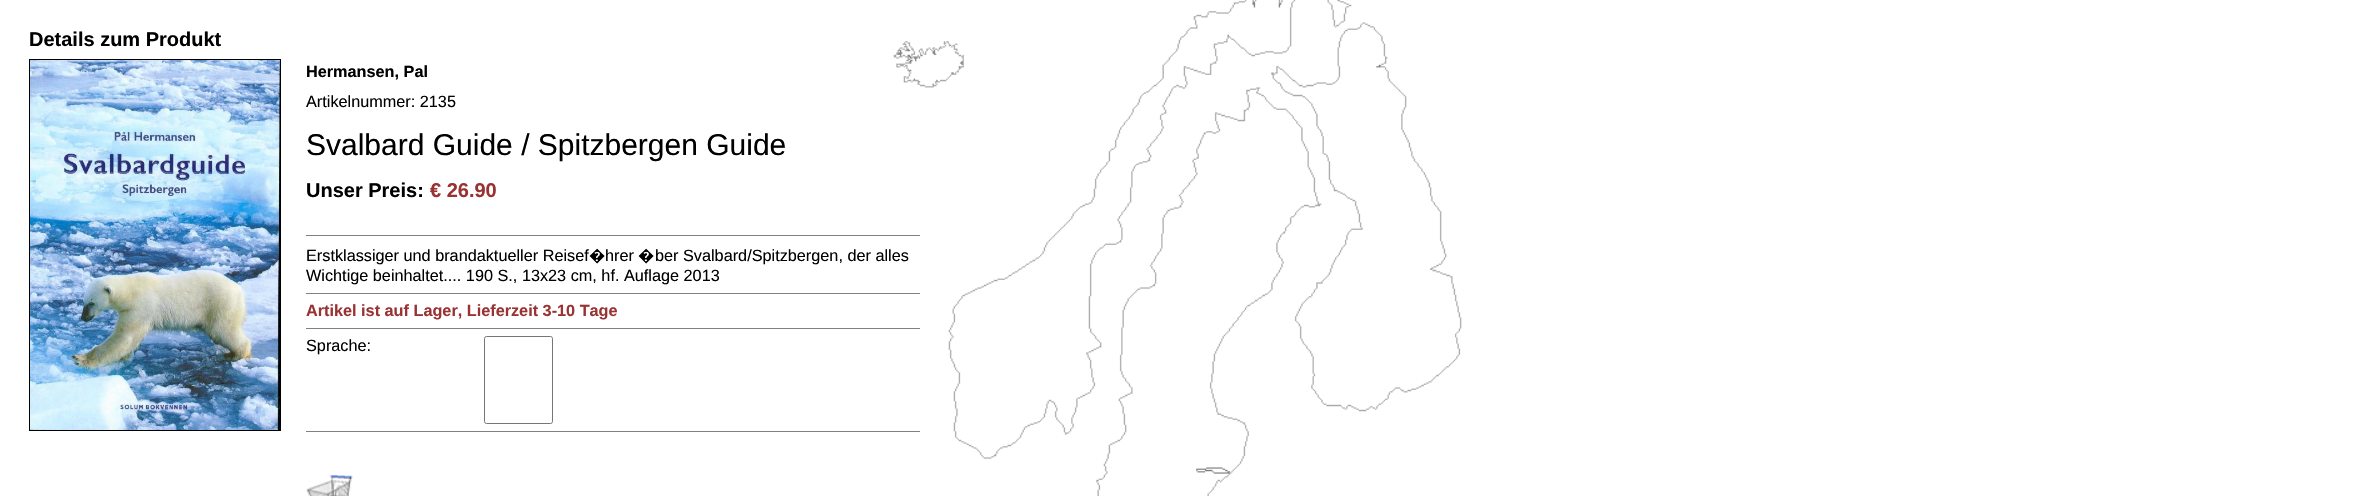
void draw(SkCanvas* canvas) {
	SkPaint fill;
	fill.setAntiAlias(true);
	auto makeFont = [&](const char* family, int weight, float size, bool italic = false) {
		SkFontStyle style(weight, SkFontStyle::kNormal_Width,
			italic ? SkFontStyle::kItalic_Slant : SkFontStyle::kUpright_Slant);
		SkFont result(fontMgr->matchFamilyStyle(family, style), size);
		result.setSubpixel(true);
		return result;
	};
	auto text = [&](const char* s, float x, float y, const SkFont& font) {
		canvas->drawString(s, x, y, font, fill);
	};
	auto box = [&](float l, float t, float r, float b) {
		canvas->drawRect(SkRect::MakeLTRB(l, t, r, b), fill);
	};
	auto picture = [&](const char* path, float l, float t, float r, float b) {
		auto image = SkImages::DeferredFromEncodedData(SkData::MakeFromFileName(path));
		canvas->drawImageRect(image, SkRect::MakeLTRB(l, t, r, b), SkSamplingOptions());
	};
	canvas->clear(0xFFFFFFFF);
	picture("image0.png", 893, 0, 1462, 496);
	fill.setColor(0xFF000000);
	box(29, 59, 281, 431);
	picture("image1.png", 30, 60, 280, 430);
	fill.setColor(0xFF808080);
	box(306, 235, 920, 236);
	box(306, 293, 920, 294);
	box(306, 328, 920, 329);
	fill.setStyle(SkPaint::kStroke_Style);
	fill.setStrokeWidth(1);
	fill.setColor(0xFF767676);
	canvas->drawRoundRect(SkRect::MakeLTRB(484.5f, 336.5f, 552.5f, 423.5f), 2, 2, fill);
	fill.setStyle(SkPaint::kFill_Style);
	fill.setColor(0xFF808080);
	box(306, 431, 920, 432);
	picture("image2.png", 306, 475, 353, 496);
	auto font1 = makeFont("Liberation Sans", 700, 20);
	fill.setColor(0xFF000000);
	text("Details zum Produkt", 29, 46, font1);
	auto font2 = makeFont("Liberation Sans", 700, 16.25f);
	text("Hermansen, Pal", 306, 77, font2);
	auto font3 = makeFont("Liberation Sans", 400, 16.25f);
	text("Artikelnummer: 2135", 306, 107, font3);
	auto font4 = makeFont("Liberation Sans", 400, 30);
	text("Svalbard Guide / Spitzbergen Guide", 306, 155, font4);
	text("Unser Preis:", 306, 197, font1);
	fill.setColor(0xFF993333);
	text("€ 26.90", 430, 197, font1);
	fill.setColor(0xFF000000);
	text("Erstklassiger und brandaktueller Reisef", 306, 261, font3);
	auto font5 = makeFont("Noto Sans", 400, 16.25f);
	text("�", 589, 261, font5);
	text("hrer", 605, 261, font3);
	text("�", 638, 261, font5);
	text("ber Svalbard/Spitzbergen, der alles", 655, 261, font3);
	text("Wichtige beinhaltet.... 190 S., 13x23 cm, hf. Auflage 2013", 306, 281, font3);
	fill.setColor(0xFF993333);
	text("Artikel ist auf Lager, Lieferzeit 3-10 Tage", 306, 316, font2);
	fill.setColor(0xFF000000);
	text("Sprache:", 306, 351, font3);
}
